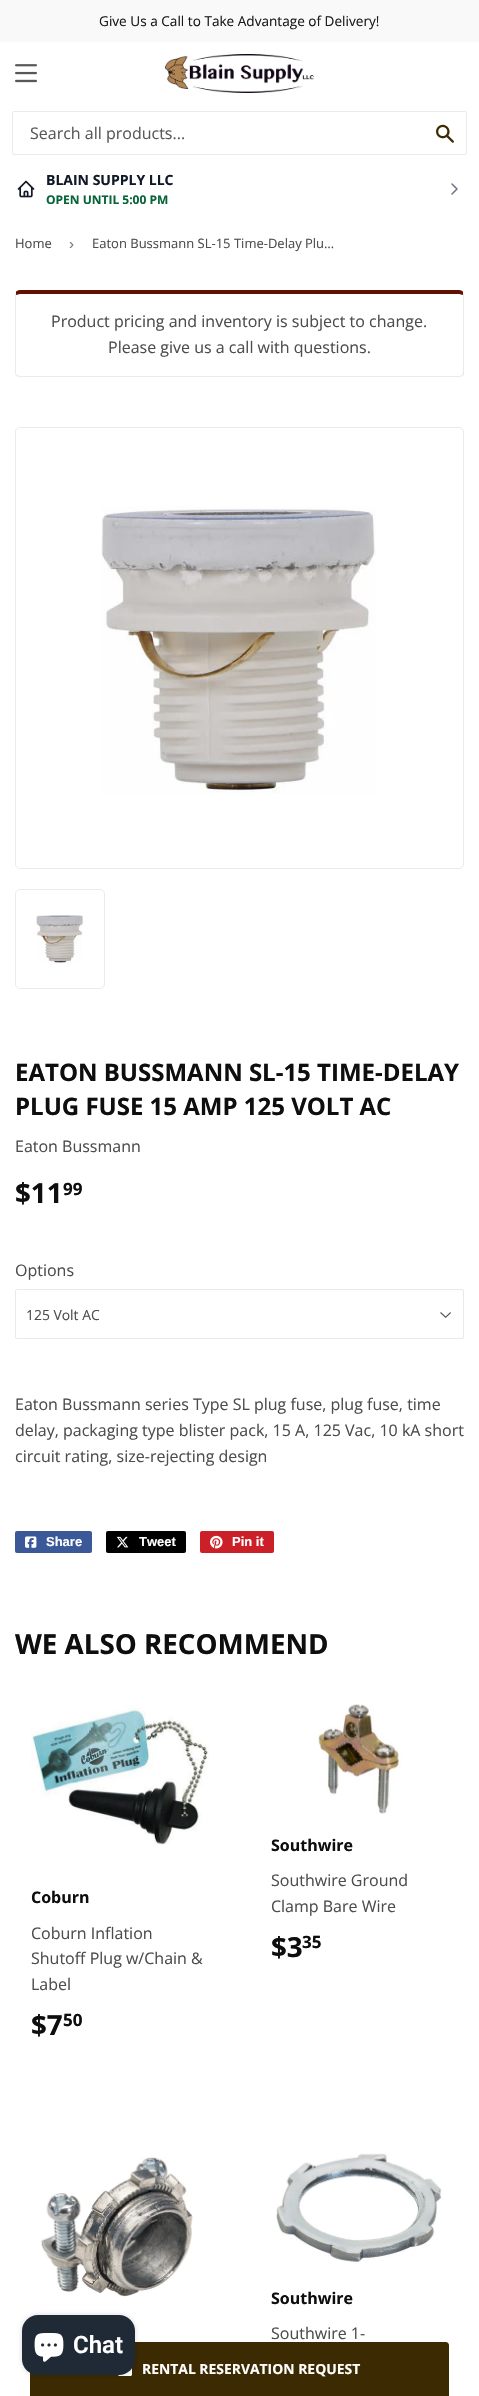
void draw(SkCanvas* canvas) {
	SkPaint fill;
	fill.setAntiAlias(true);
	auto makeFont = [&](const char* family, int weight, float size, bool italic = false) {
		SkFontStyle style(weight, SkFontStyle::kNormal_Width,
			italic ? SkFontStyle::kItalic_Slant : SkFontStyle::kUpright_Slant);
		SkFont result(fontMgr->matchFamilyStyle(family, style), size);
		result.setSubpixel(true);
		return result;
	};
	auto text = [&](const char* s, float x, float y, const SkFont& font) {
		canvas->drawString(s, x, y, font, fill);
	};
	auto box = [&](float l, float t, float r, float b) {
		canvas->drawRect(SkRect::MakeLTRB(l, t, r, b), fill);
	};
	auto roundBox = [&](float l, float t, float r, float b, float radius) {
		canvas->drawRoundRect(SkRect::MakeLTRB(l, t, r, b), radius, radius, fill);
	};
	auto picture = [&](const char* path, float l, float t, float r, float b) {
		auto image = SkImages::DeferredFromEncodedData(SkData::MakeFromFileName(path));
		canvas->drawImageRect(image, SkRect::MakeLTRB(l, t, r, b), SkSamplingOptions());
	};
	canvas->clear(0xFFFFFFFF);
	fill.setColor(0xFFF9F9F9);
	box(0, 0, 479, 42);
	picture("image0.png", 15, 64, 37, 83);
	picture("image1.png", 165, 54, 314, 93);
	fill.setStyle(SkPaint::kStroke_Style);
	fill.setStrokeWidth(1);
	fill.setColor(0xFFEAEAEA);
	canvas->drawRoundRect(SkRect::MakeLTRB(12.5f, 111.5f, 466.5f, 154.5f), 1.5f, 1.5f, fill);
	picture("image2.png", 436, 124, 454, 143);
	picture("image3.png", 17, 180, 35, 198);
	fill.setStrokeWidth(1.5f);
	fill.setStrokeCap(SkPaint::kRound_Cap);
	fill.setStrokeJoin(SkPaint::kRound_Join);
	fill.setColor(0xFF6B7280);
	canvas->drawPath(SkPathBuilder().moveTo(452, 184).lineTo(457, 189).lineTo(452, 194).detach(), fill);
	fill.setStyle(SkPaint::kFill_Style);
	fill.setColor(0xFF630F01);
	canvas->drawPath(SkPathBuilder().moveTo(20, 290).cubicTo(18, 290, 16, 291, 16, 292).lineTo(16, 295).lineTo(20, 294).lineTo(459, 294).lineTo(463, 295).lineTo(463, 292).cubicTo(463, 291, 461, 290, 459, 290).close().detach(), fill);
	fill.setColor(0xFFEAEAEA);
	canvas->drawPath(SkPathBuilder().moveTo(464, 372).lineTo(464, 295).lineTo(463, 292).lineTo(463, 295).lineTo(463, 372).cubicTo(463, 373, 462, 374, 462, 375).lineTo(463, 376).cubicTo(464, 375, 464, 374, 464, 372).close().detach(), fill);
	canvas->drawPath(SkPathBuilder().moveTo(20, 377).lineTo(459, 377).cubicTo(460, 377, 462, 376, 463, 376).lineTo(462, 375).lineTo(460, 376).lineTo(20, 376).lineTo(17, 375).lineTo(16, 376).cubicTo(17, 376, 18, 377, 20, 377).close().detach(), fill);
	canvas->drawPath(SkPathBuilder().moveTo(15, 295).lineTo(15, 373).lineTo(16, 376).lineTo(17, 375).cubicTo(16, 374, 16, 373, 16, 372).lineTo(16, 295).lineTo(16, 292).close().detach(), fill);
	fill.setStyle(SkPaint::kStroke_Style);
	fill.setStrokeWidth(1);
	fill.setStrokeCap(SkPaint::kButt_Cap);
	fill.setStrokeJoin(SkPaint::kMiter_Join);
	canvas->drawRoundRect(SkRect::MakeLTRB(15.5f, 427.5f, 463.5f, 868.5f), 4.5f, 4.5f, fill);
	picture("image4.png", 101, 506, 376, 794);
	canvas->drawRoundRect(SkRect::MakeLTRB(15.5f, 889.5f, 104.5f, 988.5f), 4.5f, 4.5f, fill);
	picture("image5.png", 36, 915, 83, 964);
	picture("image6.png", 440, 1312, 451, 1318);
	fill.setColor(0xFFE9E9E9);
	canvas->drawRoundRect(SkRect::MakeLTRB(15.5f, 1289.5f, 463.5f, 1338.5f), 1.5f, 1.5f, fill);
	fill.setStyle(SkPaint::kFill_Style);
	fill.setColor(0xFF3B5998);
	roundBox(15, 1531, 92, 1553, 2);
	picture("image7.png", 25, 1536, 37, 1548);
	fill.setColor(0xFF000000);
	roundBox(106, 1531, 186, 1553, 2);
	picture("image8.png", 116, 1536, 129, 1548);
	fill.setColor(0xFFCB2027);
	roundBox(200, 1531, 274, 1553, 2);
	picture("image9.png", 210, 1535, 223, 1549);
	picture("image10.png", 31, 1705, 209, 1845);
	picture("image11.png", 318, 1702, 401, 1814);
	picture("image12.png", 40, 2157, 193, 2297);
	picture("image13.png", 276, 2153, 442, 2262);
	fill.setColor(0xFF3B2A02);
	canvas->drawPath(SkPathBuilder().moveTo(33, 2342).lineTo(446, 2342).cubicTo(447.5f, 2342, 449, 2343.5f, 449, 2345).lineTo(449, 2396).lineTo(30, 2396).lineTo(30, 2345).cubicTo(30, 2343.5f, 31.5f, 2342, 33, 2342).close().detach(), fill);
	picture("image15.png", 118, 2368, 132, 2376);
	fill.setColor(0x26000000);
	fill.setMaskFilter(SkMaskFilter::MakeBlur(kNormal_SkBlurStyle, 2.5f));
	canvas->drawRoundRect(SkRect::MakeLTRB(22, 2315, 135, 2375), 16, 16, fill);
	fill.setMaskFilter(nullptr);
	fill.setColor(0xFF202A36);
	roundBox(22, 2315, 135, 2375, 16);
	picture("image14.png", 34, 2333, 64, 2362);
	auto font1 = makeFont("Open Sans", 400, 13.6f);
	fill.setColor(0xFF1B1B1B);
	text("Give Us a Call to Take Advantage of Delivery!", 99, 26, font1);
	auto font2 = makeFont("Open Sans", 400, 16);
	fill.setColor(0xFF585858);
	text("Search all products...", 30, 139, font2);
	auto font3 = makeFont("Open Sans", 700, 14);
	fill.setColor(0xFF111827);
	text("BLAIN SUPPLY LLC", 46, 185, font3);
	auto font4 = makeFont("Open Sans", 700, 12);
	fill.setColor(0xFF076437);
	text("OPEN UNTIL 5:00 PM", 46, 204, font4);
	auto font5 = makeFont("Open Sans", 400, 13);
	fill.setColor(0xFF4D4D4D);
	text("Home", 15, 248, font5);
	auto font6 = makeFont("Liberation Sans", 400, 15);
	fill.setColor(0xFF767676);
	text("›", 69, 249, font6);
	fill.setColor(0xFF4D4D4D);
	text("Eaton Bussmann SL-15 Time-Delay Plu…", 92, 248, font5);
	text("Product pricing and inventory is subject to change.", 51, 327, font2);
	text("Please give us a call with questions.", 108, 353, font2);
	auto font7 = makeFont("Open Sans", 700, 24);
	fill.setColor(0xFF0E0E0E);
	text("EATON BUSSMANN SL-15 TIME-DELAY", 15, 1081, font7);
	text("PLUG FUSE 15 AMP 125 VOLT AC", 15, 1115, font7);
	fill.setColor(0xFF4D4D4D);
	text("Eaton Bussmann", 15, 1152, font2);
	auto font8 = makeFont("Open Sans", 700, 27.75f);
	fill.setColor(0xFF0E0E0E);
	text("$11", 15, 1203, font8);
	auto font9 = makeFont("Open Sans", 700, 17);
	text("99", 63, 1195, font9);
	fill.setColor(0xFF4D4D4D);
	text("Options", 15, 1276, font2);
	auto font10 = makeFont("Open Sans", 400, 13.9f);
	text("125 Volt AC", 26, 1320, font10);
	text("Eaton Bussmann series Type SL plug fuse, plug fuse, time", 15, 1410, font2);
	text("delay, packaging type blister pack, 15 A, 125 Vac, 10 kA short", 15, 1436, font2);
	text("circuit rating, size-rejecting design", 15, 1462, font2);
	auto font11 = makeFont("Liberation Sans", 700, 13);
	fill.setColor(0xFFFFFFFF);
	text("Share", 46, 1546, font11);
	text("Tweet", 139, 1546, font11);
	text("Pin it", 232, 1546, font11);
	fill.setColor(0xFF0E0E0E);
	text("WE ALSO RECOMMEND", 15, 1654, font8);
	auto font12 = makeFont("Open Sans", 700, 16);
	text("Coburn", 31, 1903, font12);
	fill.setColor(0xFF4D4D4D);
	text("Coburn Inflation", 31, 1939, font2);
	text("Shutoff Plug w/Chain &", 31, 1964, font2);
	text("Label", 31, 1990, font2);
	fill.setColor(0xFF0E0E0E);
	text("$7", 31, 2035, font8);
	text("50", 63, 2026, font9);
	text("Southwire", 271, 1851, font12);
	fill.setColor(0xFF4D4D4D);
	text("Southwire Ground", 271, 1886, font2);
	text("Clamp Bare Wire", 271, 1912, font2);
	fill.setColor(0xFF0E0E0E);
	text("$3", 271, 1957, font8);
	text("35", 302, 1948, font9);
	text("Southwire", 271, 2304, font12);
	fill.setColor(0xFF4D4D4D);
	text("Southwire 1-", 271, 2339, font2);
	auto font13 = makeFont("Roboto", 600, 24);
	fill.setColor(0xFFFFFFFF);
	text("Chat", 73, 2353, font13);
	auto font14 = makeFont("Open Sans", 700, 13.9f);
	text("RENTAL RESERVATION REQUEST", 142, 2374, font14);
}
